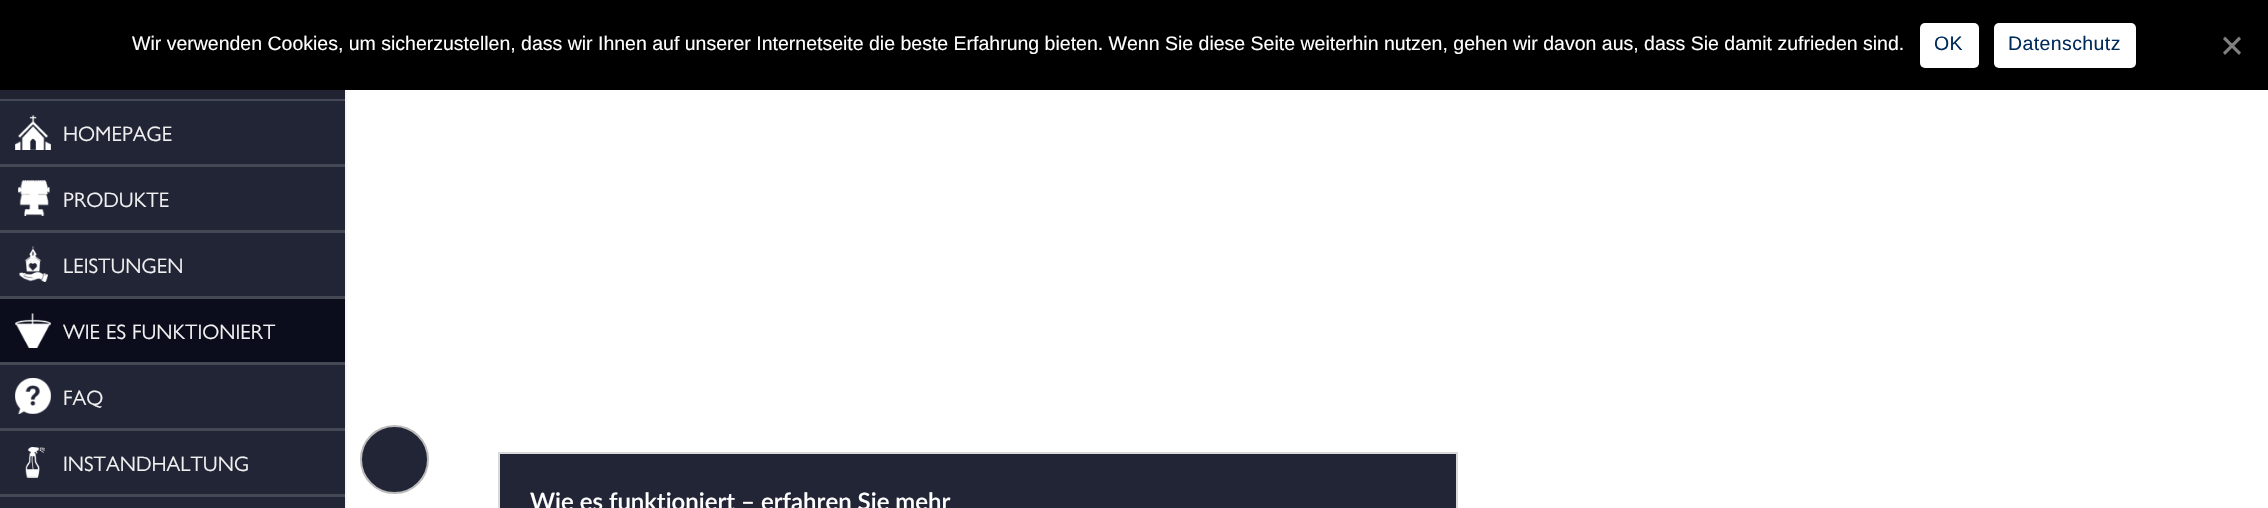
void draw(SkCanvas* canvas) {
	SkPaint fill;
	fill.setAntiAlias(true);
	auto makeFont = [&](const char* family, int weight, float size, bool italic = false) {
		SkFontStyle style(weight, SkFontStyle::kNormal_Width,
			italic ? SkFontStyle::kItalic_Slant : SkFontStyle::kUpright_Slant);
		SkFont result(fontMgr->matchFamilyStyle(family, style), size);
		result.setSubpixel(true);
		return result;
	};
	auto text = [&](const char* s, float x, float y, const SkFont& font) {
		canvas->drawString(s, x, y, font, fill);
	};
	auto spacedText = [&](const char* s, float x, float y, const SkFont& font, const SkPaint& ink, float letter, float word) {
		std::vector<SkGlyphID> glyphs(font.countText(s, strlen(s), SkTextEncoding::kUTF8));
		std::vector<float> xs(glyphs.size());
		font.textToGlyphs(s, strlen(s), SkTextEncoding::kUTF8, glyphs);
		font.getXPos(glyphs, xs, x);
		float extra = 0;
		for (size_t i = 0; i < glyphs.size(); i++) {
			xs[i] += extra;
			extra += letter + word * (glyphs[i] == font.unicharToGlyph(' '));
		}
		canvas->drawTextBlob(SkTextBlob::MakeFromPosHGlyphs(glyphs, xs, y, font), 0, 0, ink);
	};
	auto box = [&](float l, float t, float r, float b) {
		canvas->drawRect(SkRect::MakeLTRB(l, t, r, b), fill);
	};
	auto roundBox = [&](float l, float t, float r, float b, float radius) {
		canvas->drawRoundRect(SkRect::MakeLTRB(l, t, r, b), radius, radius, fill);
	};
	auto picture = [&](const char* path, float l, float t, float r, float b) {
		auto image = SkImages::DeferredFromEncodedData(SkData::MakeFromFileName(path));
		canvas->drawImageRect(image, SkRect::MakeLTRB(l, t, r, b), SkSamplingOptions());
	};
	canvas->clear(0xFFFFFFFF);
	fill.setColor(0x1A000000);
	fill.setMaskFilter(SkMaskFilter::MakeBlur(kNormal_SkBlurStyle, 2));
	canvas->drawRect(SkRect::MakeLTRB(0, 2, 345, 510), fill);
	fill.setMaskFilter(nullptr);
	fill.setColor(0xFF000000);
	box(0, 0, 2268, 90);
	fill.setColor(0xFFFFFFFF);
	roundBox(1920, 23, 1979, 68, 5);
	roundBox(1994, 23, 2136, 68, 5);
	fill.setColor(0xFF808080);
	canvas->drawPath(SkPathBuilder().moveTo(2239, 36.5f).lineTo(2241, 39).lineTo(2225, 55).lineTo(2223, 52.5f).close().detach(), fill);
	canvas->drawPath(SkPathBuilder().moveTo(2223, 39).lineTo(2225, 36.5f).lineTo(2241, 52.5f).lineTo(2239, 55).close().detach(), fill);
	fill.setColor(0xFF222536);
	box(0, 90, 345, 508);
	picture("image0.png", 0, 90, 345, 99);
	fill.setColor(0xFF454955);
	box(0, 99, 345, 101);
	box(0, 164, 345, 167);
	picture("image1.png", 15, 115, 51, 150);
	box(0, 230, 345, 233);
	picture("image2.png", 18, 180, 50, 216);
	box(0, 296, 345, 299);
	picture("image3.png", 19, 246, 48, 282);
	fill.setColor(0xFF0B0D1C);
	box(0, 299, 345, 362);
	fill.setColor(0xFF454955);
	box(0, 362, 345, 365);
	picture("image4.png", 15, 313, 51, 348);
	box(0, 428, 345, 431);
	picture("image5.png", 15, 378, 51, 414);
	box(0, 494, 345, 497);
	picture("image6.png", 25, 447, 45, 478);
	fill.setColor(0xFF222536);
	canvas->drawRect(SkRect::MakeLTRB(499, 453, 1457, 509), fill);
	fill.setStyle(SkPaint::kStroke_Style);
	fill.setStrokeWidth(2);
	fill.setColor(0xFFD9D9D9);
	canvas->drawRect(SkRect::MakeLTRB(499, 453, 1457, 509), fill);
	fill.setStyle(SkPaint::kFill_Style);
	fill.setColor(0xFF222536);
	canvas->drawCircle(394.5f, 459.5f, 33.5f, fill);
	fill.setStyle(SkPaint::kStroke_Style);
	fill.setColor(0xFFBBBBBB);
	canvas->drawCircle(394.5f, 459.5f, 33.5f, fill);
	auto font1 = makeFont("Liberation Sans", 400, 19.5f);
	fill.setStyle(SkPaint::kFill_Style);
	fill.setColor(0xFFFFFFFF);
	text("Wir verwenden Cookies, um sicherzustellen, dass wir Ihnen auf unserer Internetseite die beste Erfahrung bieten. Wenn Sie diese Seite weiterhin nutzen, gehen wir davon aus, dass Sie damit zufrieden sind.", 132, 50, font1);
	fill.setColor(0xFF002B5A);
	spacedText("OK", 1934, 50, font1, fill, 0.4f, 0);
	spacedText("Datenschutz", 2008, 50, font1, fill, 0.4f, 0);
	auto font2 = makeFont("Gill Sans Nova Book", 400, 21);
	fill.setColor(0xFFF0F0F0);
	text("HOMEPAGE", 63, 141, font2);
	text("PRODUKTE", 63, 207, font2);
	text("LEISTUNGEN", 63, 273, font2);
	text("WIE ES FUNKTIONIERT", 63, 339, font2);
	text("FAQ", 63, 405, font2);
	text("INSTANDHALTUNG", 63, 471, font2);
	auto font3 = makeFont("Lato", 600, 24);
	fill.setColor(0xFFFFFFFF);
	text("Wie es funktioniert – erfahren Sie mehr", 530, 510, font3);
}
